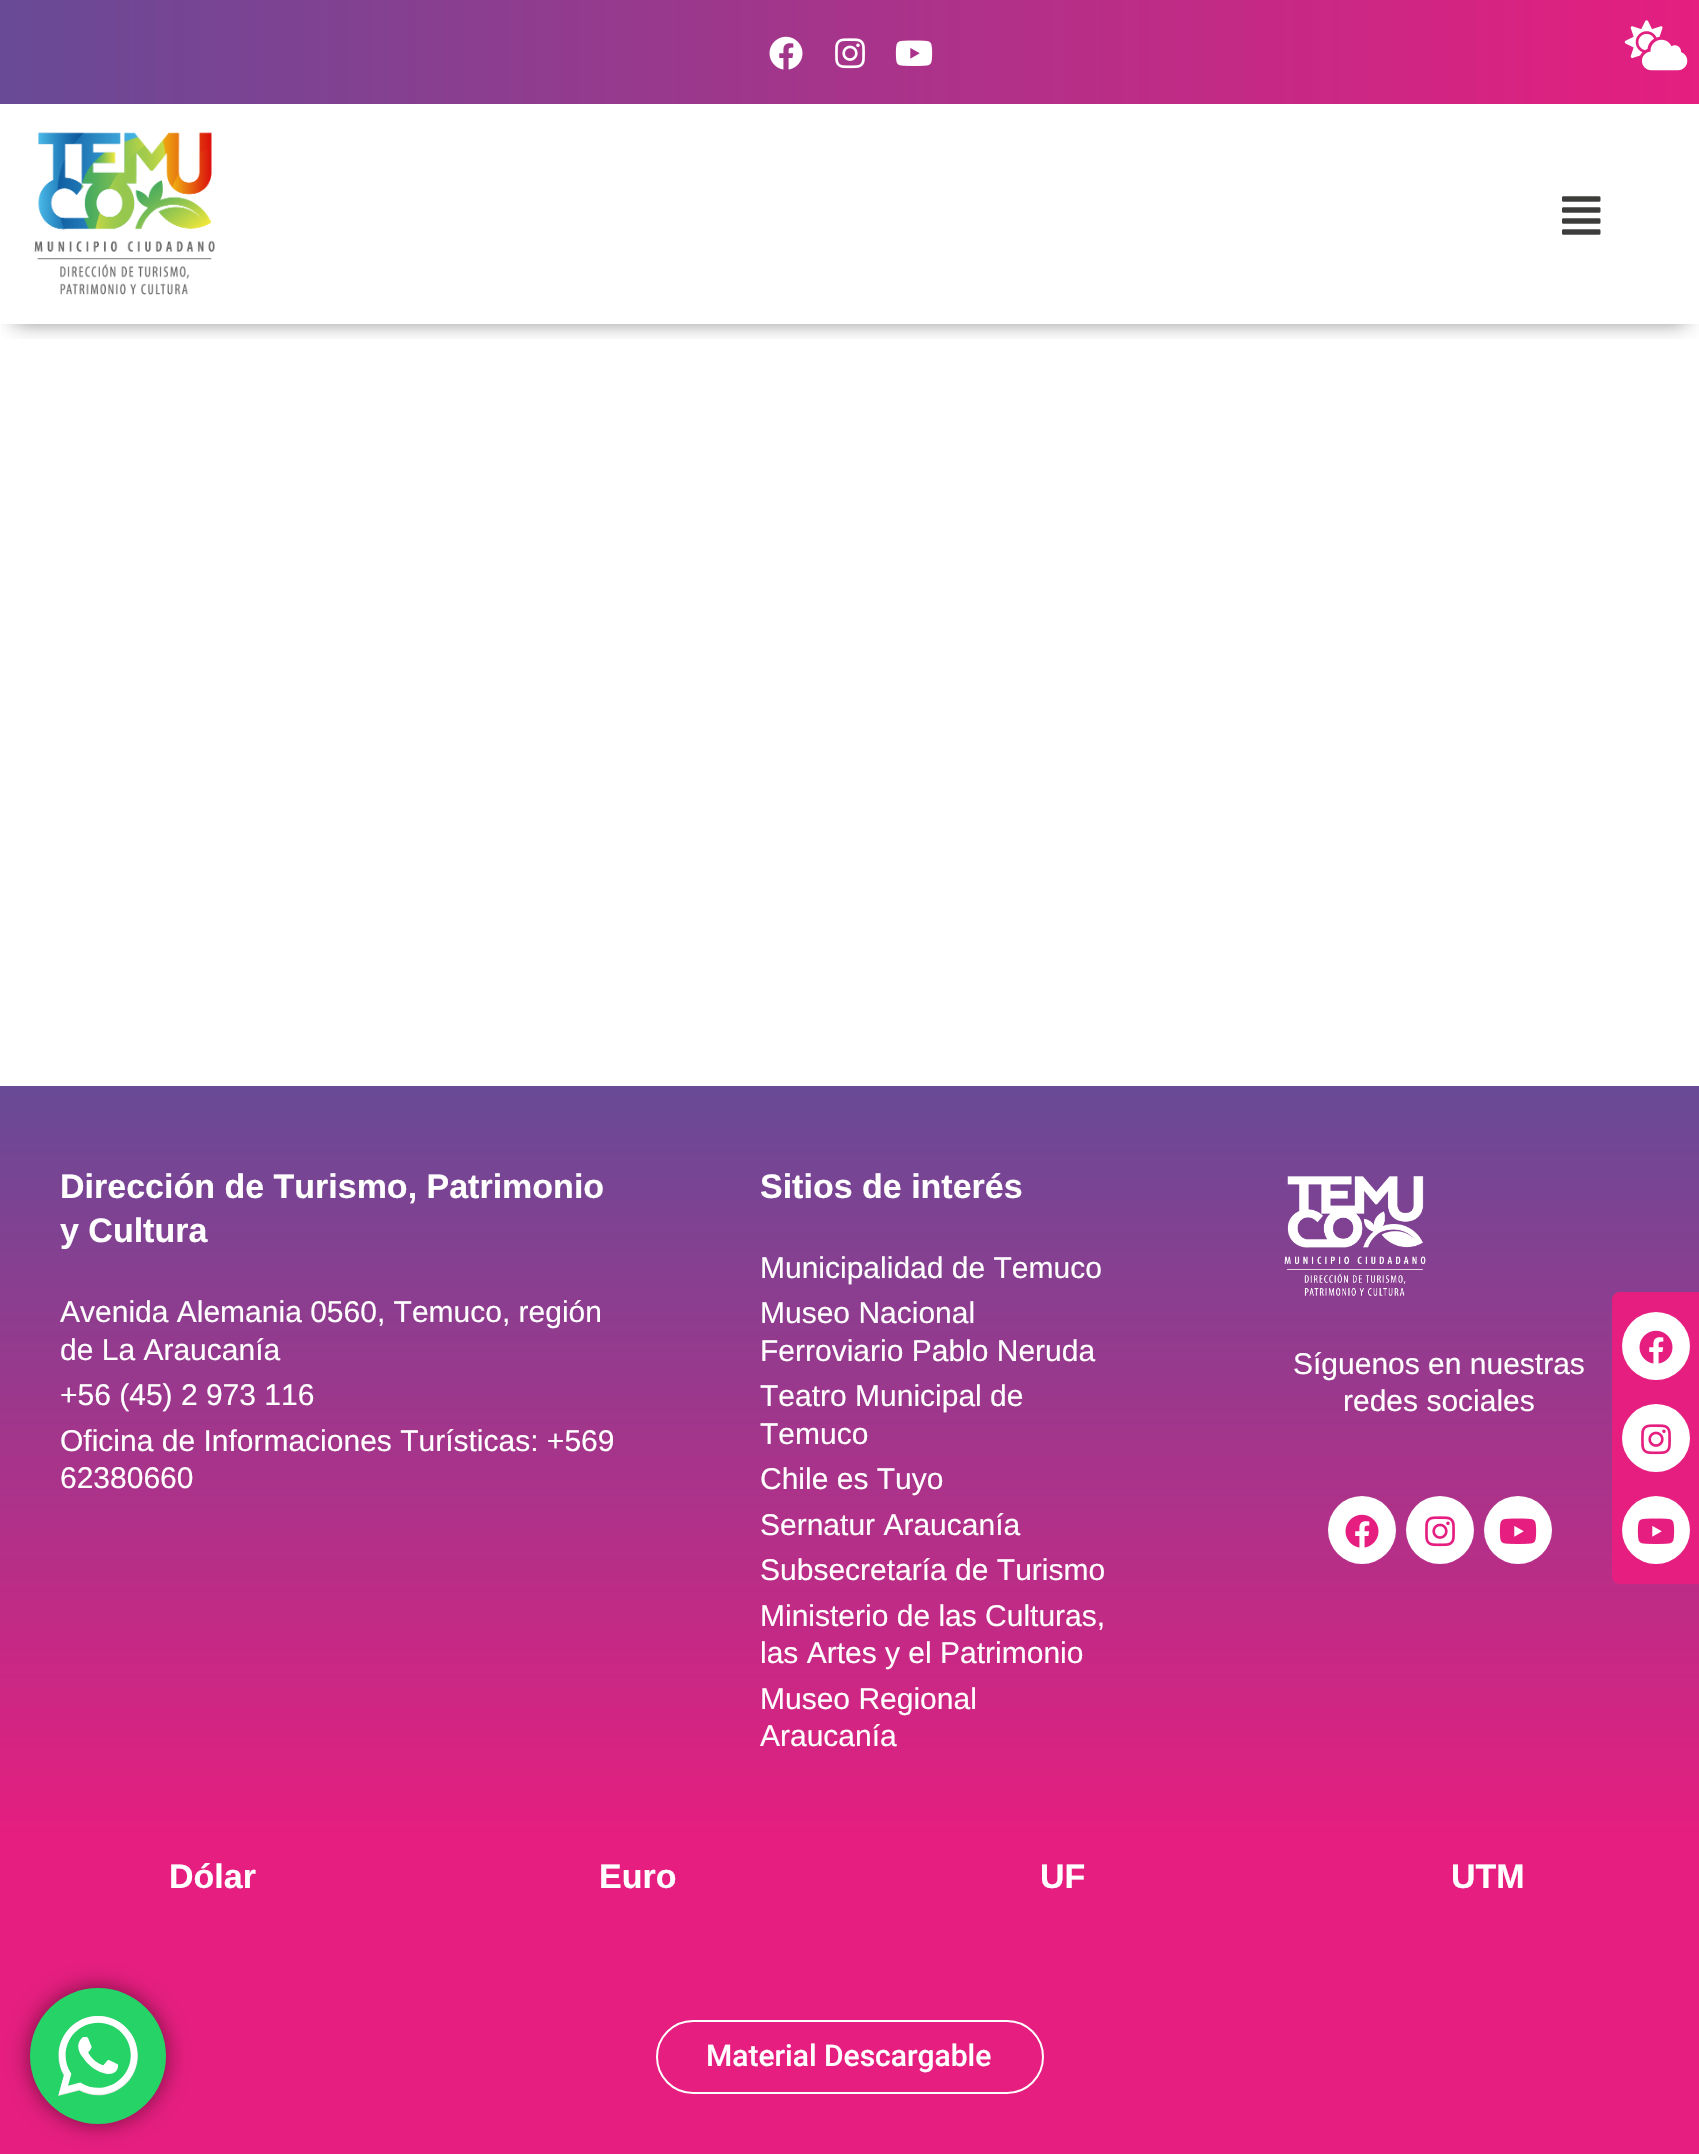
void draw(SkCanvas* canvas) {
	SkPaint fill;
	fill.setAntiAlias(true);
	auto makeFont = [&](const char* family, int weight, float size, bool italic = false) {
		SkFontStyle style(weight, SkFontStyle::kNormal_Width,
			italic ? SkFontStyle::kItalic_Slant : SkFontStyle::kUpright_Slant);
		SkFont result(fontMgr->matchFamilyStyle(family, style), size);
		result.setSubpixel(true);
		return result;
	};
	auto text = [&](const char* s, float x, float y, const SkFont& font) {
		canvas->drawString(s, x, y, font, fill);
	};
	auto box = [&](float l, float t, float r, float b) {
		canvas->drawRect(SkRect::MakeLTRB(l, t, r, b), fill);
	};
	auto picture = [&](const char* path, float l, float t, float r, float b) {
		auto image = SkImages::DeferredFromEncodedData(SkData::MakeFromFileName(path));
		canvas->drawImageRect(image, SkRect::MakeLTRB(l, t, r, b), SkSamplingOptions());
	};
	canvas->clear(0xFFFFFFFF);
	{
		const SkColor colors[] = {0xFFE51E7F, 0xFF684A96};
		const float stops[] = {0, 1};
		const SkPoint ends[] = {{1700, 52}, {0, 52}};
		fill.setShader(SkGradientShader::MakeLinear(ends, colors, stops, 2, SkTileMode::kClamp));
		fill.setAlpha(255);
	}
	box(0, 0, 1699, 104);
	picture("image0.png", 769, 36, 803, 70);
	picture("image1.png", 835, 38, 865, 69);
	picture("image2.png", 895, 40, 933, 66);
	picture("image3.png", 1624, 20, 1688, 71);
	canvas->save();
	canvas->clipRect(SkRect::MakeLTRB(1, 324, 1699, 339));
	fill.setShader(nullptr);
	fill.setColor(0x80000000);
	fill.setMaskFilter(SkMaskFilter::MakeBlur(kNormal_SkBlurStyle, 10));
	canvas->drawRect(SkRect::MakeLTRB(14, 130, 1686, 322), fill);
	fill.setMaskFilter(nullptr);
	canvas->restore();
	picture("image4.png", 34, 132, 215, 295);
	picture("image5.png", 1562, 196, 1601, 235);
	{
		const SkColor colors[] = {0xFFE51E7F, 0xFF684A96};
		const float stops[] = {0, 1};
		const SkPoint ends[] = {{850, 1836}, {850, 1086}};
		fill.setShader(SkGradientShader::MakeLinear(ends, colors, stops, 2, SkTileMode::kClamp));
		fill.setAlpha(255);
	}
	box(0, 1086, 1699, 1836);
	picture("image6.png", 1284, 1176, 1426, 1296);
	fill.setShader(nullptr);
	fill.setColor(0xFFE51E7F);
	canvas->drawPath(SkPathBuilder().moveTo(1620, 1292).lineTo(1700, 1292).lineTo(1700, 1584).lineTo(1620, 1584).cubicTo(1615.5f, 1584, 1612, 1580.5f, 1612, 1576).lineTo(1612, 1300).cubicTo(1612, 1295.5f, 1615.5f, 1292, 1620, 1292).close().detach(), fill);
	fill.setColor(0xFFFFFFFF);
	canvas->drawCircle(1656, 1346, 34, fill);
	picture("image7.png", 1639, 1330, 1673, 1364);
	canvas->drawCircle(1656, 1438, 34, fill);
	picture("image8.png", 1641, 1424, 1671, 1455);
	canvas->drawCircle(1656, 1530, 34, fill);
	picture("image9.png", 1637, 1518, 1675, 1544);
	canvas->drawCircle(1362, 1530, 34, fill);
	picture("image7.png", 1345, 1514, 1379, 1548);
	canvas->drawCircle(1440, 1530, 34, fill);
	picture("image8.png", 1425, 1516, 1455, 1547);
	canvas->drawCircle(1518, 1530, 34, fill);
	picture("image9.png", 1499, 1518, 1537, 1544);
	fill.setColor(0xFFE51E7F);
	box(0, 1836, 1699, 2154);
	fill.setStyle(SkPaint::kStroke_Style);
	fill.setStrokeWidth(2);
	fill.setColor(0xFFFFFFFF);
	canvas->drawRoundRect(SkRect::MakeLTRB(657, 2021, 1043, 2093), 36, 36, fill);
	fill.setStyle(SkPaint::kFill_Style);
	fill.setColor(0x80000000);
	fill.setMaskFilter(SkMaskFilter::MakeBlur(kNormal_SkBlurStyle, 11));
	canvas->drawRoundRect(SkRect::MakeLTRB(30, 1988, 166, 2124), 68, 68, fill);
	fill.setMaskFilter(nullptr);
	fill.setColor(0xFF25D366);
	canvas->drawCircle(98, 2056, 68, fill);
	picture("image10.png", 58, 2016, 138, 2096);
	auto font1 = makeFont("Liberation Sans", 700, 34);
	fill.setColor(0xFFFFFFFF);
	text("Dirección de Turismo, Patrimonio", 60, 1198, font1);
	text("y Cultura", 60, 1242, font1);
	auto font2 = makeFont("Liberation Sans", 400, 30);
	text("Avenida Alemania 0560, Temuco, región", 60, 1322, font2);
	text("de La Araucanía", 60, 1360, font2);
	text("+56 (45) 2 973 116", 60, 1405, font2);
	text("Oficina de Informaciones Turísticas: +569", 60, 1451, font2);
	text("62380660", 60, 1488, font2);
	text("Sitios de interés", 760, 1198, font1);
	text("Municipalidad de Temuco", 760, 1278, font2);
	text("Museo Nacional", 760, 1323, font2);
	text("Ferroviario Pablo Neruda", 760, 1361, font2);
	text("Teatro Municipal de", 760, 1406, font2);
	text("Temuco", 760, 1444, font2);
	text("Chile es Tuyo", 760, 1489, font2);
	text("Sernatur Araucanía", 760, 1535, font2);
	text("Subsecretaría de Turismo", 760, 1580, font2);
	text("Ministerio de las Culturas,", 760, 1626, font2);
	text("las Artes y el Patrimonio", 760, 1663, font2);
	text("Museo Regional", 760, 1709, font2);
	text("Araucanía", 760, 1746, font2);
	text("Síguenos en nuestras", 1293, 1374, font2);
	text("redes sociales", 1343, 1411, font2);
	text("Dólar", 169, 1888, font1);
	text("Euro", 599, 1888, font1);
	text("UF", 1040, 1888, font1);
	text("UTM", 1451, 1888, font1);
	auto font3 = makeFont("Roboto", 500, 30);
	text("Material Descargable", 706, 2066, font3);
}
